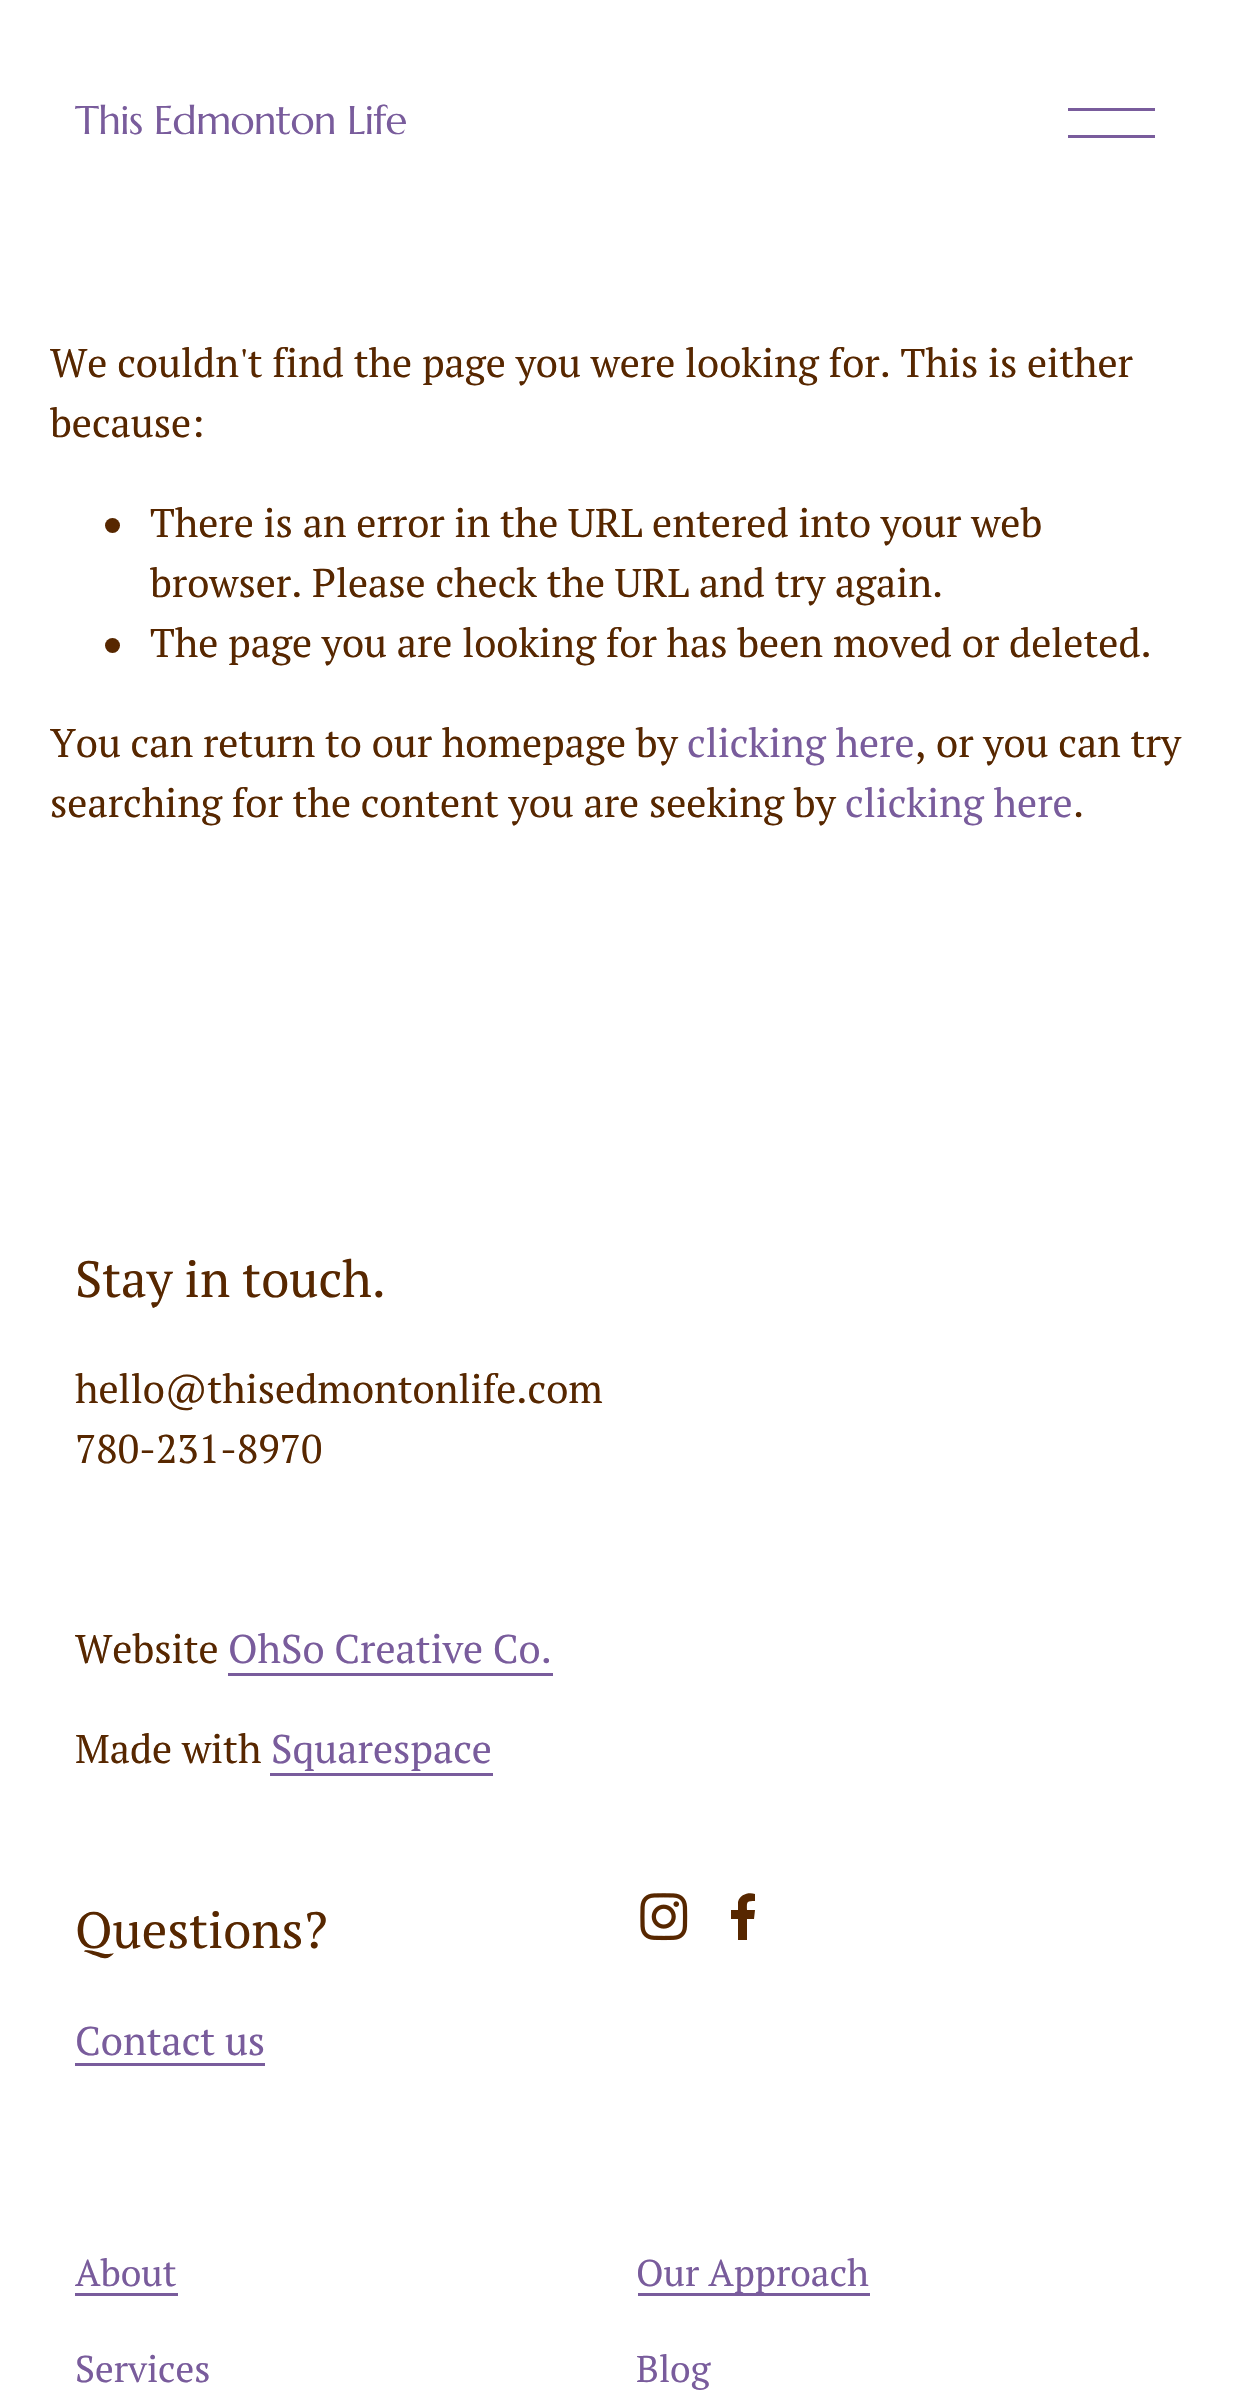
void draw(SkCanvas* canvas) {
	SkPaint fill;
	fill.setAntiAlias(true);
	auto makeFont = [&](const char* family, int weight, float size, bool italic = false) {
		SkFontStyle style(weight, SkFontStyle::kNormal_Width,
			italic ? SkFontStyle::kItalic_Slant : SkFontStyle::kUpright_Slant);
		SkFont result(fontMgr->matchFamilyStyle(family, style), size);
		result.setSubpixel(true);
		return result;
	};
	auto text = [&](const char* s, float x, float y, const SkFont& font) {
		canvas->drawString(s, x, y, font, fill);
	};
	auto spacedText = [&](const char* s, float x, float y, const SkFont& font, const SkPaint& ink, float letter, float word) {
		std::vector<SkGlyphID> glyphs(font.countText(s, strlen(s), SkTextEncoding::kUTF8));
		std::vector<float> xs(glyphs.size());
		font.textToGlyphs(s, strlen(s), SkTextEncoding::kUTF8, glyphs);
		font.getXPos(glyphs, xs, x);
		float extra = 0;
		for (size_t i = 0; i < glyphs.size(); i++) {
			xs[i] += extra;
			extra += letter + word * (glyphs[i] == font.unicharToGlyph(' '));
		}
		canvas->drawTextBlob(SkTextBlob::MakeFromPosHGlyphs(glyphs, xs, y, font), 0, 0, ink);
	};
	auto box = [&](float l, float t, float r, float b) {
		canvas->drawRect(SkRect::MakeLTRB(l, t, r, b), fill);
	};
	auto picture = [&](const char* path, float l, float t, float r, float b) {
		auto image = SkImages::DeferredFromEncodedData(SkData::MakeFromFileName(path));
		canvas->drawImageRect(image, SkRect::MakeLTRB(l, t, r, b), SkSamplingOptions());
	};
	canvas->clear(0xFFFFFFFF);
	fill.setColor(0xFF795C9C);
	box(1068, 108, 1155, 111);
	box(1068, 135, 1155, 138);
	fill.setColor(0xFF572700);
	canvas->drawCircle(112.5f, 525.5f, 7.5f, fill);
	canvas->drawCircle(112.5f, 645.5f, 7.5f, fill);
	fill.setColor(0xFF795C9C);
	box(228, 1673, 553, 1676);
	box(270, 1773, 493, 1776);
	box(75, 2063, 265, 2066);
	picture("image0.png", 640, 1893, 688, 1941);
	fill.setColor(0xFF572700);
	canvas->drawPath(SkPathBuilder().moveTo(747, 1940).lineTo(747, 1919).lineTo(754, 1919).lineTo(755, 1910).lineTo(747, 1910).cubicTo(747, 1902, 746, 1901, 755, 1901).lineTo(755, 1894).cubicTo(749, 1892, 740, 1894, 738, 1902).lineTo(738, 1910).lineTo(731, 1910).lineTo(731, 1919).lineTo(738, 1919).lineTo(738, 1940).close().detach(), fill);
	fill.setColor(0xFF795C9C);
	box(75, 2293, 178, 2296);
	box(638, 2293, 870, 2296);
	auto font1 = makeFont("Marcellus", 400, 40);
	spacedText("This Edmonton Life", 75, 134, font1, fill, -0.75f, 0);
	auto font2 = makeFont("PT Serif", 400, 40);
	fill.setColor(0xFF572700);
	text("We couldn't find the page you were looking for. This is either", 50, 377, font2);
	text("because:", 50, 437, font2);
	text("There is an error in the URL entered into your web", 150, 537, font2);
	text("browser. Please check the URL and try again.", 150, 597, font2);
	text("The page you are looking for has been moved or deleted.", 150, 657, font2);
	text("You can return to our homepage by", 50, 757, font2);
	fill.setColor(0xFF795C9C);
	text("clicking here", 687, 757, font2);
	fill.setColor(0xFF572700);
	text(", or you can try", 915, 757, font2);
	text("searching for the content you are seeking by", 50, 817, font2);
	fill.setColor(0xFF795C9C);
	text("clicking here", 845, 817, font2);
	fill.setColor(0xFF572700);
	text(".", 1073, 817, font2);
	auto font3 = makeFont("PT Serif", 400, 50.75f);
	text("Stay in touch.", 75, 1297, font3);
	text("hello@thisedmontonlife.com", 75, 1403, font2);
	text("780-231-8970", 75, 1463, font2);
	text("Website", 75, 1663, font2);
	fill.setColor(0xFF795C9C);
	text("OhSo Creative Co.", 228, 1663, font2);
	fill.setColor(0xFF572700);
	text("Made with", 75, 1763, font2);
	fill.setColor(0xFF795C9C);
	text("Squarespace", 271, 1763, font2);
	fill.setColor(0xFF572700);
	text("Questions?", 75, 1948, font3);
	fill.setColor(0xFF795C9C);
	text("Contact us", 75, 2055, font2);
	auto font4 = makeFont("PT Serif", 400, 37.25f);
	text("About", 75, 2286, font4);
	text("Services", 75, 2382, font4);
	text("Our Approach", 636, 2286, font4);
	text("Blog", 636, 2382, font4);
}
